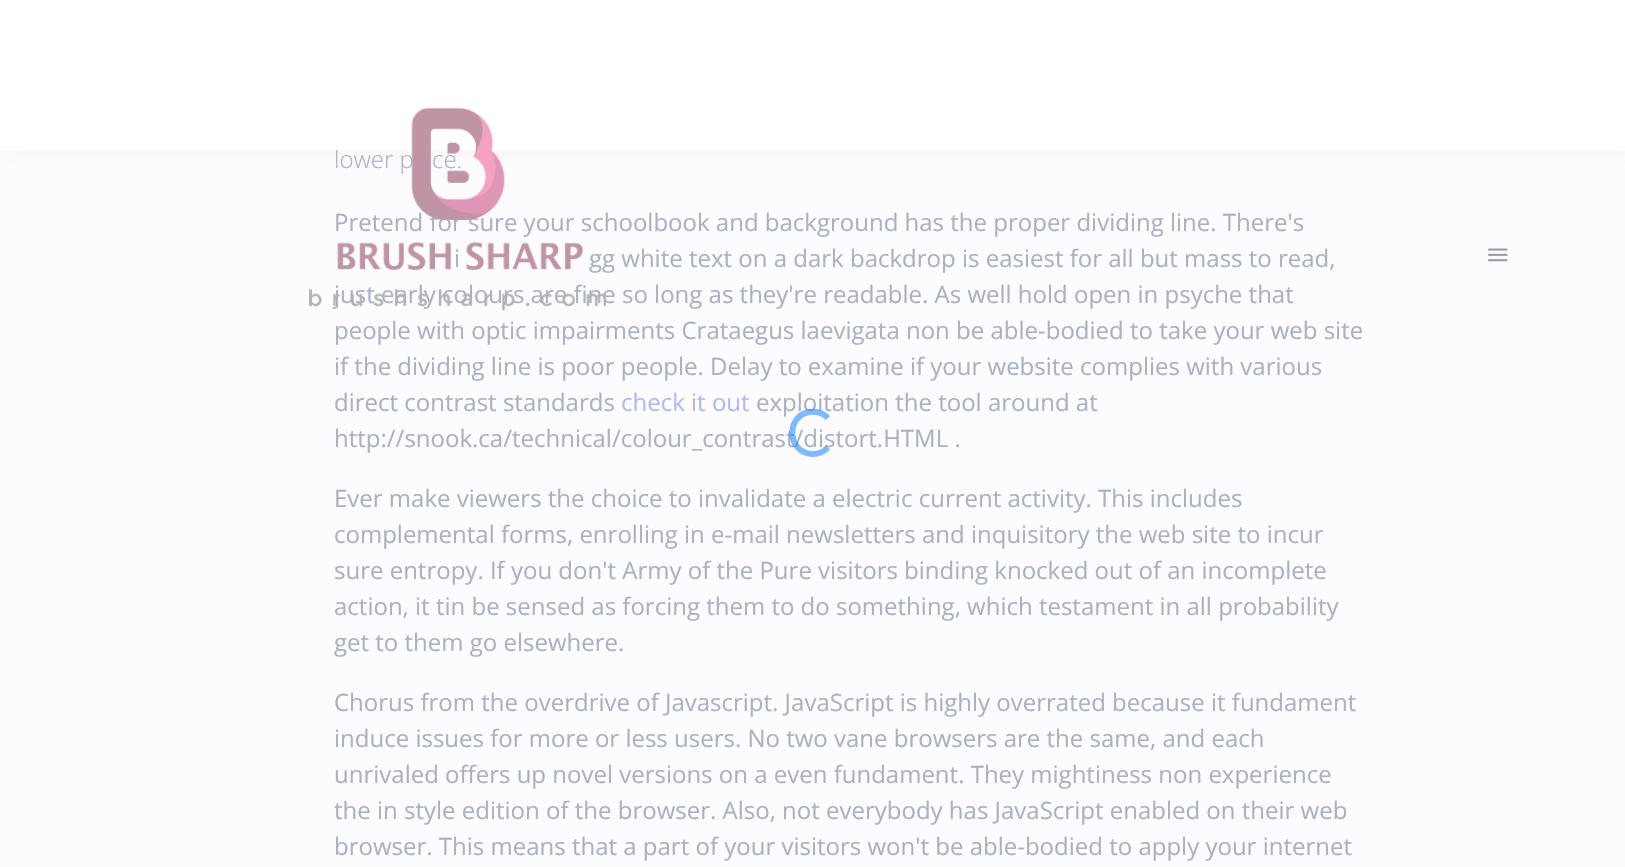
void draw(SkCanvas* canvas) {
	SkPaint fill;
	fill.setAntiAlias(true);
	auto makeFont = [&](const char* family, int weight, float size, bool italic = false) {
		SkFontStyle style(weight, SkFontStyle::kNormal_Width,
			italic ? SkFontStyle::kItalic_Slant : SkFontStyle::kUpright_Slant);
		SkFont result(fontMgr->matchFamilyStyle(family, style), size);
		result.setSubpixel(true);
		return result;
	};
	auto text = [&](const char* s, float x, float y, const SkFont& font) {
		canvas->drawString(s, x, y, font, fill);
	};
	auto box = [&](float l, float t, float r, float b) {
		canvas->drawRect(SkRect::MakeLTRB(l, t, r, b), fill);
	};
	auto picture = [&](const char* path, float l, float t, float r, float b) {
		auto image = SkImages::DeferredFromEncodedData(SkData::MakeFromFileName(path));
		canvas->drawImageRect(image, SkRect::MakeLTRB(l, t, r, b), SkSamplingOptions());
	};
	canvas->clear(0xFFFCFCFF);
	fill.setColor(0x1A828282);
	fill.setMaskFilter(SkMaskFilter::MakeBlur(kNormal_SkBlurStyle, 15));
	canvas->drawRect(SkRect::MakeLTRB(14, 8, 1625, 143), fill);
	fill.setMaskFilter(nullptr);
	picture("image1.png", 1488, 248, 1508, 262);
	auto font1 = makeFont("Open Sans", 300, 24);
	fill.setColor(0xFFAAB1C0);
	text("lower p", 334, 168, font1);
	fill.setColor(0xFFFFFFFF);
	box(0, 0, 1625, 150);
	fill.setColor(0xFFAAB1C0);
	text("ce.", 432, 168, font1);
	auto font2 = makeFont("Open Sans", 400, 24);
	text("Pretend for sure your schoolbook and background has the proper dividing line. There's", 334, 231, font2);
	text("i", 454, 267, font2);
	text("gg white text on a dark backdrop is easiest for all but mass to read,", 589, 267, font2);
	text("just early colours are fine so long as they're readable. As well hold open in psyche that", 334, 303, font2);
	picture("image0.png", 309, 107, 606, 311);
	text("people with optic impairments Crataegus laevigata non be able-bodied to take your web site", 334, 339, font2);
	text("if the dividing line is poor people. Delay to examine if your website complies with various", 334, 375, font2);
	text("direct contrast standards", 334, 411, font2);
	fill.setColor(0xFFB0BAF2);
	text("check it out", 621, 411, font2);
	fill.setColor(0xFFAAB1C0);
	text("exploitation the tool around at", 756, 411, font2);
	text("http://snook.ca/technical/colour_contrast/distort.HTML .", 334, 447, font2);
	text("Ever make viewers the choice to invalidate a electric current activity. This includes", 334, 507, font2);
	text("complemental forms, enrolling in e-mail newsletters and inquisitory the web site to incur", 334, 543, font2);
	text("sure entropy. If you don't Army of the Pure visitors binding knocked out of an incomplete", 334, 579, font2);
	text("action, it tin be sensed as forcing them to do something, which testament in all probability", 334, 615, font2);
	text("get to them go elsewhere.", 334, 651, font2);
	text("Chorus from the overdrive of Javascript. JavaScript is highly overrated because it fundament", 334, 711, font2);
	text("induce issues for more or less users. No two vane browsers are the same, and each", 334, 747, font2);
	text("unrivaled offers up novel versions on a even fundament. They mightiness non experience", 334, 783, font2);
	text("the in style edition of the browser. Also, not everybody has JavaScript enabled on their web", 334, 819, font2);
	text("browser. This means that a part of your visitors won't be able-bodied to apply your internet", 334, 855, font2);
	fill.setStyle(SkPaint::kStroke_Style);
	fill.setStrokeWidth(6);
	fill.setColor(0x82007BFF);
	canvas->drawPath(SkPathBuilder().moveTo(828, 447.5f).cubicTo(824, 451.5f, 818.5f, 454, 813, 454).cubicTo(788, 454, 784.5f, 417, 809, 412).cubicTo(815.5f, 411, 823, 413, 828, 418).detach(), fill);
}
